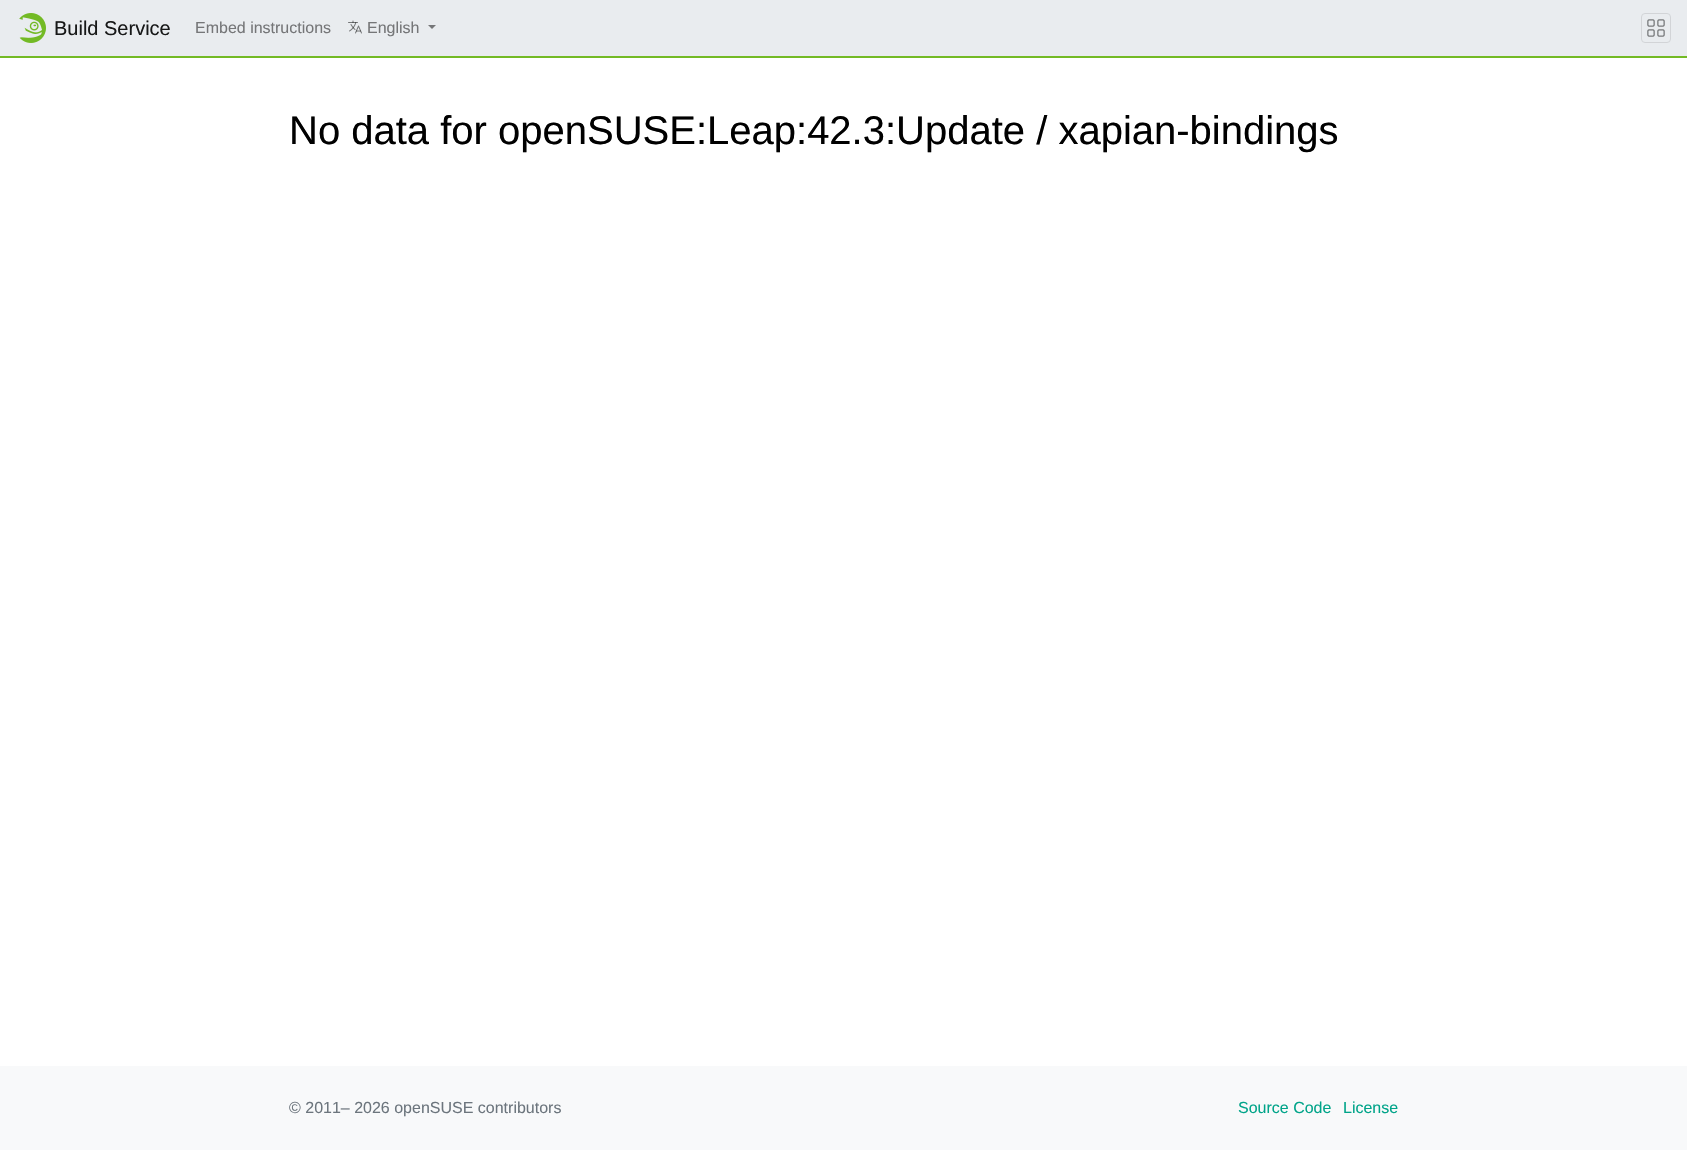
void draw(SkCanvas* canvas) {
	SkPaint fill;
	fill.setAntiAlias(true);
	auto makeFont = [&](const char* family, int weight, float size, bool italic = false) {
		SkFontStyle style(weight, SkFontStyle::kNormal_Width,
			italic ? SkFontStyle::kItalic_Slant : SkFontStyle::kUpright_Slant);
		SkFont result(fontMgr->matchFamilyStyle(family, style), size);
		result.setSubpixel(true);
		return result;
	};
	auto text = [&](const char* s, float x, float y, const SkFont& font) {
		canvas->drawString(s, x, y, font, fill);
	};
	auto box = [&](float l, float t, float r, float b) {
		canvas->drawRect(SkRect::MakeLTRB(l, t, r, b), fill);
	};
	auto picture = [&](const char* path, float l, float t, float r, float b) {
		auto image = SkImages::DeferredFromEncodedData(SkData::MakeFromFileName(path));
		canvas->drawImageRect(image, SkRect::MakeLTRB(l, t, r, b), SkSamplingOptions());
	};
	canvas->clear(0xFFFFFFFF);
	fill.setColor(0xFFE9ECEF);
	box(0, 0, 1687, 56);
	fill.setColor(0xFF73BA25);
	box(0, 56, 1687, 58);
	picture("image0.png", 19, 13, 46, 43);
	picture("image1.png", 348, 20, 362, 34);
	fill.setColor(0xFF757678);
	canvas->drawPath(SkPathBuilder().moveTo(428, 25).lineTo(436, 25).lineTo(432, 29).close().detach(), fill);
	fill.setStyle(SkPaint::kStroke_Style);
	fill.setStrokeWidth(1);
	fill.setColor(0xFFD2D4D7);
	canvas->drawRoundRect(SkRect::MakeLTRB(1641.5f, 13.5f, 1670.5f, 42.5f), 3.5f, 3.5f, fill);
	picture("image2.png", 1647, 19, 1665, 37);
	fill.setStyle(SkPaint::kFill_Style);
	fill.setColor(0xFFF8F9FA);
	box(0, 1066, 1687, 1150);
	auto font1 = makeFont("Liberation Sans", 400, 20);
	fill.setColor(0xFF171818);
	text("Build Service", 54, 35, font1);
	auto font2 = makeFont("Liberation Sans", 400, 16);
	fill.setColor(0xFF757678);
	text("Embed instructions", 195, 33, font2);
	text("English", 367, 33, font2);
	auto font3 = makeFont("Liberation Sans", 400, 40);
	fill.setColor(0xFF000000);
	text("No data for openSUSE:Leap:42.3:Update / xapian-bindings", 289, 144, font3);
	fill.setColor(0xFF6C757D);
	text("© 2011– 2026 openSUSE contributors", 289, 1113, font2);
	fill.setColor(0xFF00A489);
	text("Source Code", 1238, 1113, font2);
	text("License", 1343, 1113, font2);
}
